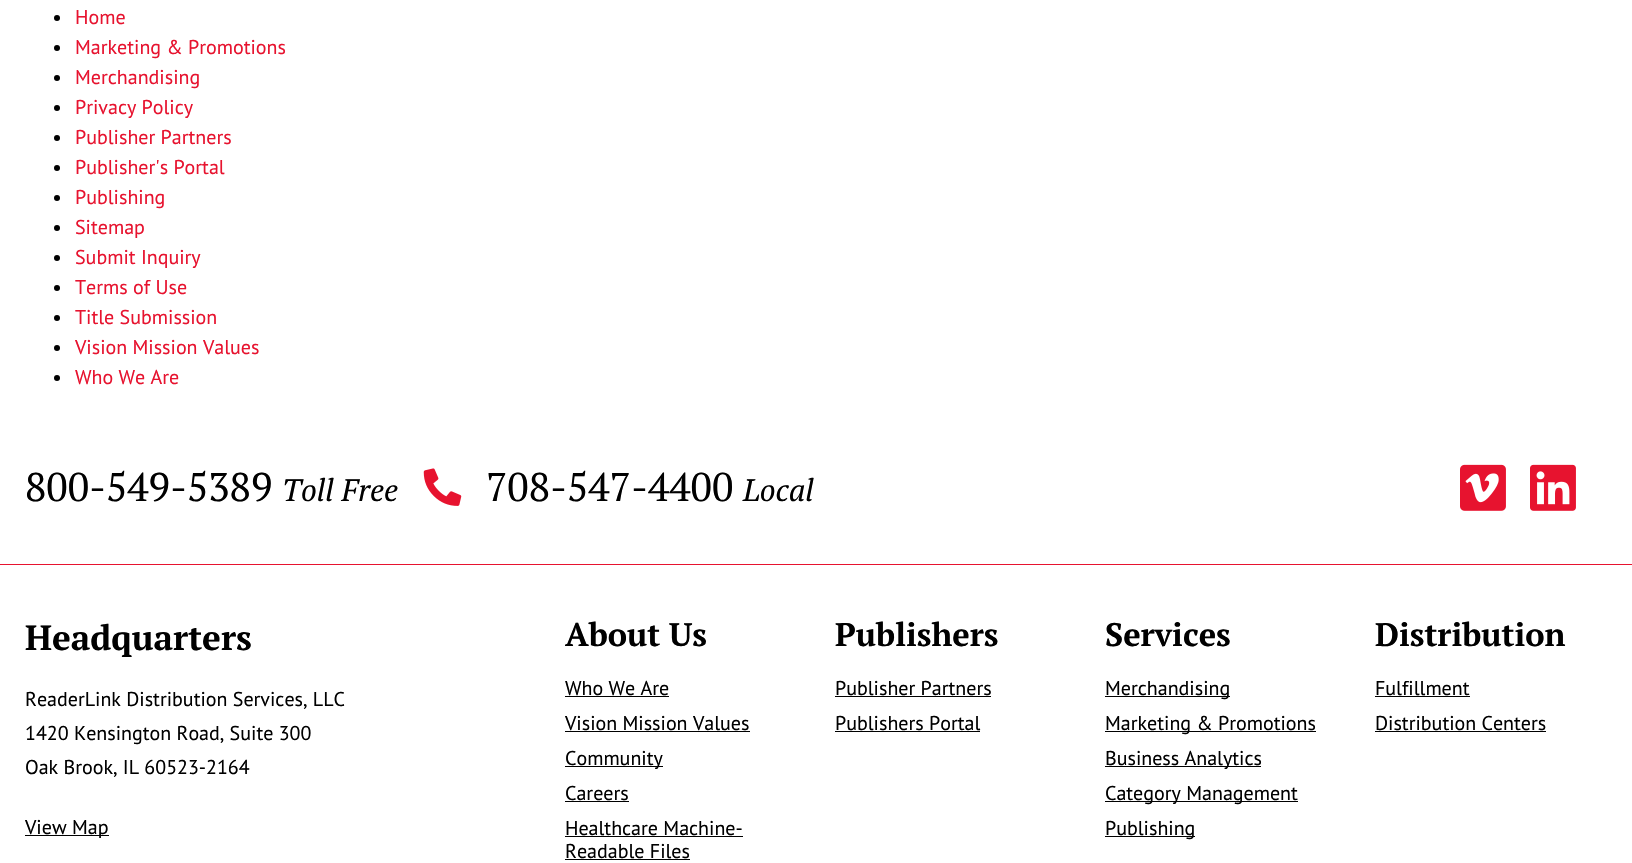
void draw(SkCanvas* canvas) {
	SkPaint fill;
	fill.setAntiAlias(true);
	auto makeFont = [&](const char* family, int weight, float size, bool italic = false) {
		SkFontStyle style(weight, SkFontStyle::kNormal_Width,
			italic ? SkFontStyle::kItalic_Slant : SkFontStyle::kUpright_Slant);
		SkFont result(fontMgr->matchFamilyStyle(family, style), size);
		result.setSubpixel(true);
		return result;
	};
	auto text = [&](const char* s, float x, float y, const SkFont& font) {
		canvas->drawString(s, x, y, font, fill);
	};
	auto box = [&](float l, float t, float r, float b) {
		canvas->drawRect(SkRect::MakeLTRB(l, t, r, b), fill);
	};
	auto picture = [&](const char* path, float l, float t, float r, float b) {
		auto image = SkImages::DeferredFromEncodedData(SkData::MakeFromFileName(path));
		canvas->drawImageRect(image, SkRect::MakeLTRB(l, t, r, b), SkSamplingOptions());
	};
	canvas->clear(0xFFFFFFFF);
	fill.setColor(0xFF000000);
	canvas->drawCircle(57, 18, 3, fill);
	canvas->drawCircle(57, 48, 3, fill);
	canvas->drawCircle(57, 78, 3, fill);
	canvas->drawCircle(57, 108, 3, fill);
	canvas->drawCircle(57, 138, 3, fill);
	canvas->drawCircle(57, 168, 3, fill);
	canvas->drawCircle(57, 198, 3, fill);
	canvas->drawCircle(57, 228, 3, fill);
	canvas->drawCircle(57, 258, 3, fill);
	canvas->drawCircle(57, 288, 3, fill);
	canvas->drawCircle(57, 318, 3, fill);
	canvas->drawCircle(57, 348, 3, fill);
	canvas->drawCircle(57, 378, 3, fill);
	fill.setColor(0xFFE7132F);
	box(0, 564, 1632, 565);
	picture("image0.png", 423, 468, 462, 506);
	picture("image1.png", 1460, 464, 1506, 511);
	picture("image2.png", 1530, 464, 1576, 511);
	fill.setColor(0xFF000000);
	box(25, 835, 109, 836);
	box(565, 696, 669, 697);
	box(565, 731, 750, 732);
	box(565, 766, 663, 767);
	box(565, 801, 629, 802);
	box(565, 836, 743, 837);
	box(565, 859, 690, 860);
	box(835, 696, 991, 697);
	box(835, 731, 980, 732);
	box(1105, 696, 1230, 697);
	box(1105, 731, 1316, 732);
	box(1105, 766, 1261, 767);
	box(1105, 801, 1298, 802);
	box(1105, 836, 1195, 837);
	box(1375, 696, 1470, 697);
	box(1375, 731, 1546, 732);
	auto font1 = makeFont("PT Sans", 400, 20);
	fill.setColor(0xFFE7132F);
	text("Home", 75, 24, font1);
	text("Marketing & Promotions", 75, 54, font1);
	text("Merchandising", 75, 84, font1);
	text("Privacy Policy", 75, 114, font1);
	text("Publisher Partners", 75, 144, font1);
	text("Publisher's Portal", 75, 174, font1);
	text("Publishing", 75, 204, font1);
	text("Sitemap", 75, 234, font1);
	text("Submit Inquiry", 75, 264, font1);
	text("Terms of Use", 75, 294, font1);
	text("Title Submission", 75, 324, font1);
	text("Vision Mission Values", 75, 354, font1);
	text("Who We Are", 75, 384, font1);
	auto font2 = makeFont("PT Serif", 400, 40);
	fill.setColor(0xFF000000);
	text("800-549-5389", 25, 501, font2);
	auto font3 = makeFont("PT Serif", 400, 31, true);
	text("Toll Free", 282, 501, font3);
	text("708-547-4400", 486, 501, font2);
	text("Local", 743, 501, font3);
	auto font4 = makeFont("PT Serif", 700, 35);
	text("Headquarters", 25, 650, font4);
	text("ReaderLink Distribution Services, LLC", 25, 706, font1);
	text("1420 Kensington Road, Suite 300", 25, 740, font1);
	text("Oak Brook, IL 60523-2164", 25, 774, font1);
	text("View Map", 25, 834, font1);
	auto font5 = makeFont("PT Serif", 700, 32.5f);
	text("About Us", 565, 646, font5);
	text("Who We Are", 565, 695, font1);
	text("Vision Mission Values", 565, 730, font1);
	text("Community", 565, 765, font1);
	text("Careers", 565, 800, font1);
	text("Healthcare Machine-", 565, 835, font1);
	text("Readable Files", 565, 858, font1);
	text("Publishers", 835, 646, font5);
	text("Publisher Partners", 835, 695, font1);
	text("Publishers Portal", 835, 730, font1);
	text("Services", 1105, 646, font5);
	text("Merchandising", 1105, 695, font1);
	text("Marketing & Promotions", 1105, 730, font1);
	text("Business Analytics", 1105, 765, font1);
	text("Category Management", 1105, 800, font1);
	text("Publishing", 1105, 835, font1);
	text("Distribution", 1375, 646, font5);
	text("Fulfillment", 1375, 695, font1);
	text("Distribution Centers", 1375, 730, font1);
}
